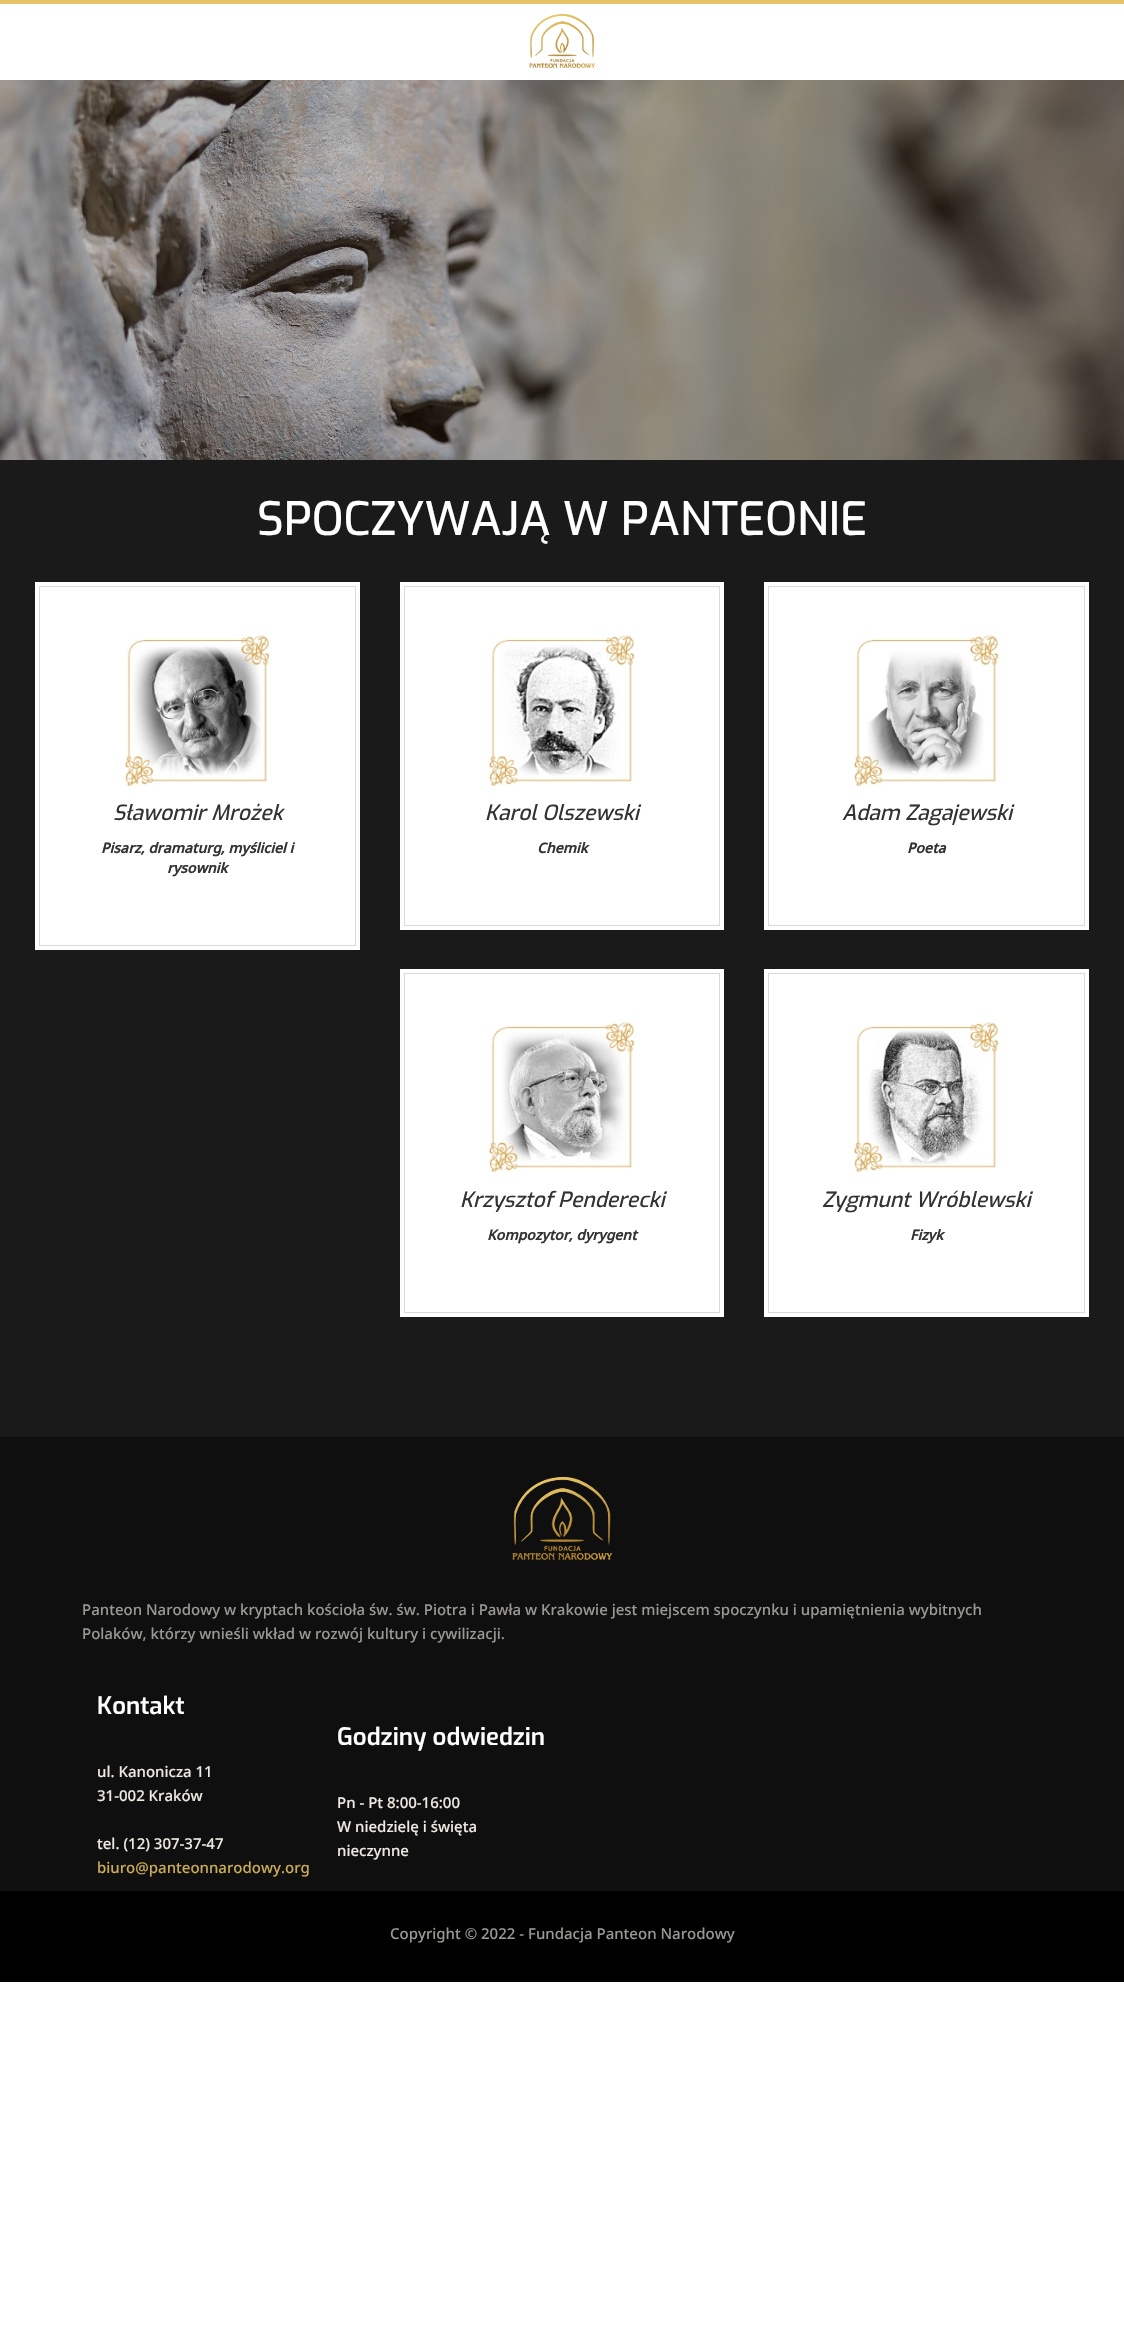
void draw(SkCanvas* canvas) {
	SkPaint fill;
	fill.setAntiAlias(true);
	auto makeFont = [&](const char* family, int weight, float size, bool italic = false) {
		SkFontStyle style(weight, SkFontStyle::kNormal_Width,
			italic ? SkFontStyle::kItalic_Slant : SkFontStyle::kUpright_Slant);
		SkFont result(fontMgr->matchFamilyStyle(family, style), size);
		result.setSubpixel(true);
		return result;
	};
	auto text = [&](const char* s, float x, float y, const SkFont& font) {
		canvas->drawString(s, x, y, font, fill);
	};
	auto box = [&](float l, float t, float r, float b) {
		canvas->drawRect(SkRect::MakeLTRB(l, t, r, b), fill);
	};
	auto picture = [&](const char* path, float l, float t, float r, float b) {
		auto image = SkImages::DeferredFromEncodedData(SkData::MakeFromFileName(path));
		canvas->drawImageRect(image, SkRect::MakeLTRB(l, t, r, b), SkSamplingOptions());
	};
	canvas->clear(0xFFFFFFFF);
	fill.setColor(0xFFE6C366);
	box(0, 0, 1124, 4);
	picture("image0.png", 529, 14, 595, 68);
	picture("image1.png", 0, 80, 1124, 460);
	fill.setColor(0xFF1A1A1A);
	box(0, 460, 1124, 1437);
	fill.setColor(0xFFFFFFFF);
	box(35, 582, 360, 950);
	fill.setStyle(SkPaint::kStroke_Style);
	fill.setStrokeWidth(1);
	fill.setColor(0xFFDADADA);
	canvas->drawRect(SkRect::MakeLTRB(39.5f, 586.5f, 355.5f, 945.5f), fill);
	picture("image2.png", 124, 635, 270, 787);
	fill.setStyle(SkPaint::kFill_Style);
	fill.setColor(0xFFFFFFFF);
	box(400, 582, 724, 930);
	fill.setStyle(SkPaint::kStroke_Style);
	fill.setColor(0xFFDADADA);
	canvas->drawRect(SkRect::MakeLTRB(404.5f, 586.5f, 719.5f, 925.5f), fill);
	picture("image3.png", 488, 635, 635, 787);
	fill.setStyle(SkPaint::kFill_Style);
	fill.setColor(0xFFFFFFFF);
	box(764, 582, 1089, 930);
	fill.setStyle(SkPaint::kStroke_Style);
	fill.setColor(0xFFDADADA);
	canvas->drawRect(SkRect::MakeLTRB(768.5f, 586.5f, 1084.5f, 925.5f), fill);
	picture("image4.png", 853, 635, 999, 787);
	fill.setStyle(SkPaint::kFill_Style);
	fill.setColor(0xFFFFFFFF);
	box(400, 969, 724, 1317);
	fill.setStyle(SkPaint::kStroke_Style);
	fill.setColor(0xFFDADADA);
	canvas->drawRect(SkRect::MakeLTRB(404.5f, 973.5f, 719.5f, 1312.5f), fill);
	picture("image5.png", 488, 1022, 635, 1173);
	fill.setStyle(SkPaint::kFill_Style);
	fill.setColor(0xFFFFFFFF);
	box(764, 969, 1089, 1317);
	fill.setStyle(SkPaint::kStroke_Style);
	fill.setColor(0xFFDADADA);
	canvas->drawRect(SkRect::MakeLTRB(768.5f, 973.5f, 1084.5f, 1312.5f), fill);
	picture("image6.png", 853, 1022, 999, 1173);
	fill.setStyle(SkPaint::kFill_Style);
	fill.setColor(0xFF0F0F0F);
	box(0, 1437, 1124, 1891);
	picture("image7.png", 512, 1477, 612, 1560);
	fill.setColor(0xFF000000);
	box(0, 1891, 1124, 1982);
	auto font1 = makeFont("Exo", 500, 46);
	fill.setColor(0xFFFFFFFF);
	text("SPOCZYWAJĄ W PANTEONIE", 257, 535, font1);
	auto font2 = makeFont("Exo", 500, 21, true);
	fill.setColor(0xFF333333);
	text("Sławomir Mrożek", 113, 820, font2);
	auto font3 = makeFont("Noto Sans", 700, 14, true);
	text("Pisarz, dramaturg, myśliciel i", 101, 853, font3);
	text("rysownik", 167, 873, font3);
	text("Karol Olszewski", 485, 820, font2);
	text("Chemik", 537, 853, font3);
	text("Adam Zagajewski", 842, 820, font2);
	text("Poeta", 907, 853, font3);
	text("Krzysztof Penderecki", 460, 1207, font2);
	text("Kompozytor, dyrygent", 487, 1240, font3);
	text("Zygmunt Wróblewski", 822, 1207, font2);
	text("Fizyk", 910, 1240, font3);
	auto font4 = makeFont("Noto Sans", 500, 15);
	fill.setColor(0xFF9A9893);
	text("Panteon Narodowy w kryptach kościoła św. św. Piotra i Pawła w Krakowie jest miejscem spoczynku i upamiętnienia wybitnych", 82, 1615, font4);
	text("Polaków, którzy wnieśli wkład w rozwój kultury i cywilizacji.", 82, 1639, font4);
	auto font5 = makeFont("Exo", 600, 24);
	fill.setColor(0xFFFFFFFF);
	text("Kontakt", 97, 1714, font5);
	fill.setColor(0xFFEDEAE2);
	text("ul. Kanonicza 11", 97, 1777, font4);
	text("31-002 Kraków", 97, 1801, font4);
	text("tel. (12) 307-37-47", 97, 1849, font4);
	fill.setColor(0xFFCAAB56);
	text("biuro@panteonnarodowy.org", 97, 1873, font4);
	fill.setColor(0xFFFFFFFF);
	text("Godziny odwiedzin", 337, 1745, font5);
	fill.setColor(0xFFEDEAE2);
	text("Pn - Pt 8:00-16:00", 337, 1808, font4);
	text("W niedzielę i święta", 337, 1832, font4);
	text("nieczynne", 337, 1856, font4);
	fill.setColor(0xFF9A9893);
	text("Copyright © 2022 - Fundacja Panteon Narodowy", 390, 1939, font4);
}
